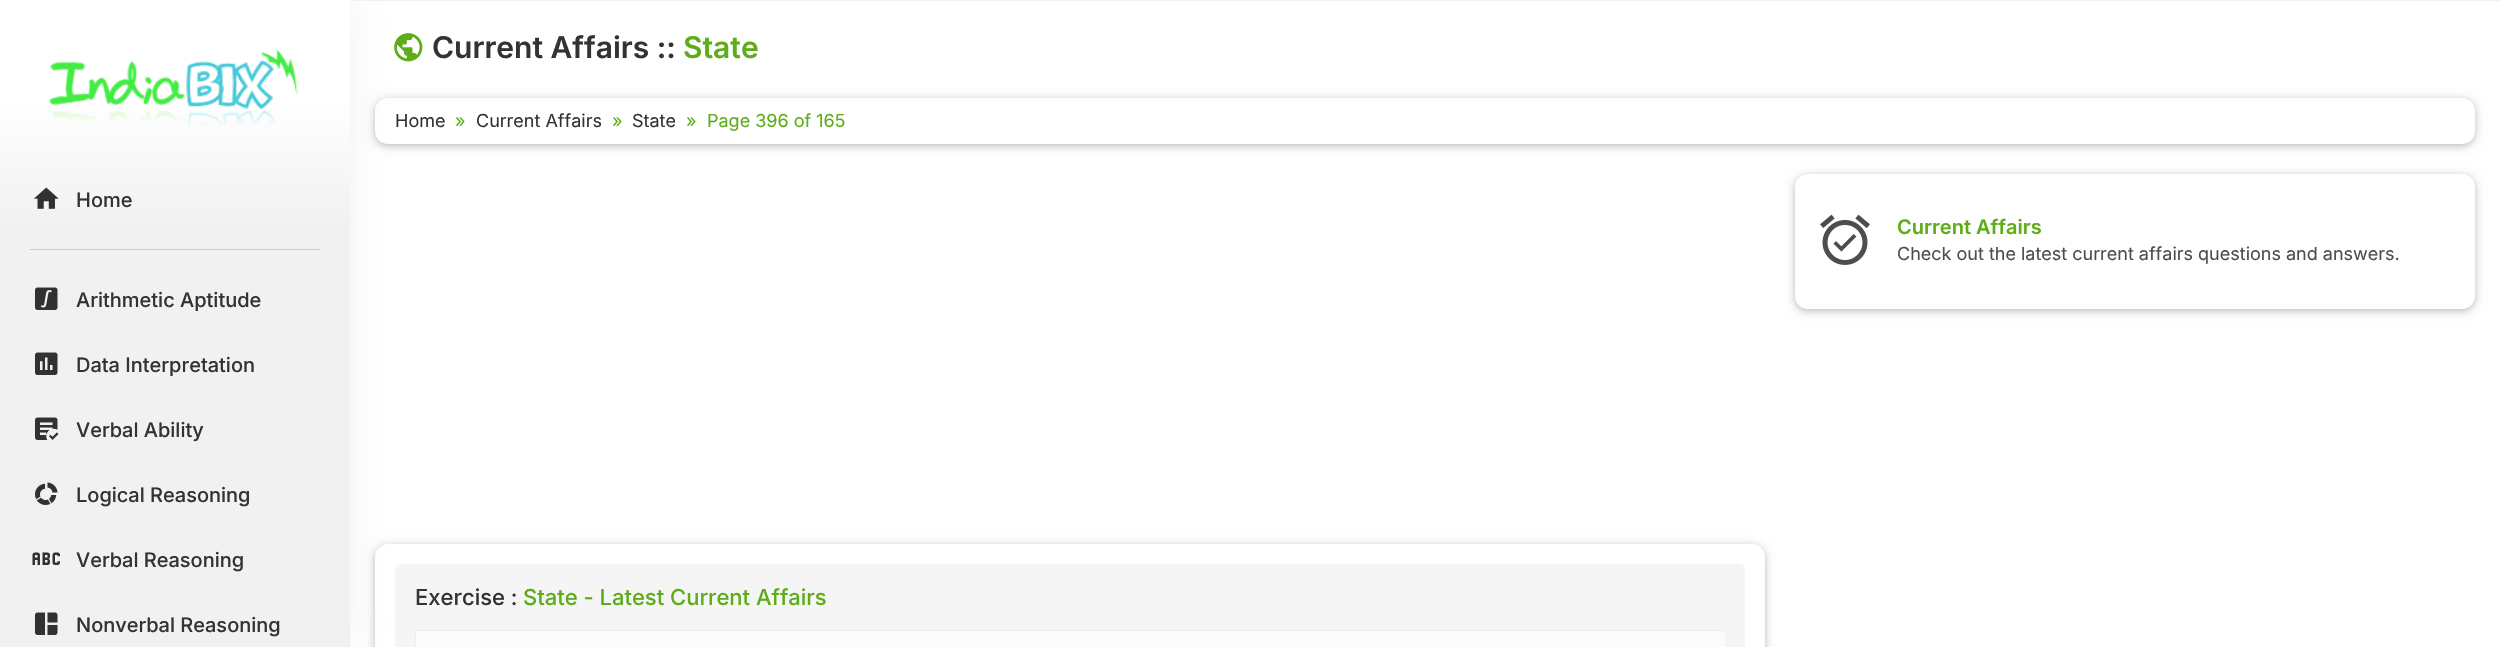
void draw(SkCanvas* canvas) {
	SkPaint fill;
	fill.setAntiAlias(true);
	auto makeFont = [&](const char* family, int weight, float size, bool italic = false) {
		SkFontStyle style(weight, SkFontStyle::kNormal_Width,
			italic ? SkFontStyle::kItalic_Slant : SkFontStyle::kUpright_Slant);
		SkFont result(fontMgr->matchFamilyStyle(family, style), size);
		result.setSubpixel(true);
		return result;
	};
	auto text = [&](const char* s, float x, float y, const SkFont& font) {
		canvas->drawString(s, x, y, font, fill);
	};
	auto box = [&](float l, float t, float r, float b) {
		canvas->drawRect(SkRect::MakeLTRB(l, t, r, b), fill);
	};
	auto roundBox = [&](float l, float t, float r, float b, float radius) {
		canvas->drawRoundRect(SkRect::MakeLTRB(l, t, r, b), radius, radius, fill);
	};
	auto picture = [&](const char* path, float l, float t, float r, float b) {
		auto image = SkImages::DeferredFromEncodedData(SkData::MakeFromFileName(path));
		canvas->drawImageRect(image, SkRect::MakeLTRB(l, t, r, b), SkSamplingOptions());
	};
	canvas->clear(0xFFFFFFFF);
	fill.setColor(0xFFF1F1F1);
	box(350, 0, 2500, 1);
	picture("image8.png", 394, 33, 423, 62);
	fill.setColor(0x1F000000);
	fill.setMaskFilter(SkMaskFilter::MakeBlur(kNormal_SkBlurStyle, 6));
	canvas->drawRoundRect(SkRect::MakeLTRB(375, 100, 2475, 146), 13, 13, fill);
	fill.setMaskFilter(nullptr);
	fill.setColor(0x29000000);
	fill.setMaskFilter(SkMaskFilter::MakeBlur(kNormal_SkBlurStyle, 3));
	canvas->drawRoundRect(SkRect::MakeLTRB(375, 100, 2475, 146), 13, 13, fill);
	fill.setMaskFilter(nullptr);
	fill.setColor(0xFFFFFFFF);
	roundBox(375, 98, 2475, 144, 13);
	fill.setColor(0x1F000000);
	fill.setMaskFilter(SkMaskFilter::MakeBlur(kNormal_SkBlurStyle, 6));
	canvas->drawRoundRect(SkRect::MakeLTRB(375, 546, 1765, 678), 13, 13, fill);
	fill.setMaskFilter(nullptr);
	fill.setColor(0x29000000);
	fill.setMaskFilter(SkMaskFilter::MakeBlur(kNormal_SkBlurStyle, 3));
	canvas->drawRoundRect(SkRect::MakeLTRB(375, 546, 1765, 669), 13, 13, fill);
	fill.setMaskFilter(nullptr);
	fill.setColor(0xFFFFFFFF);
	roundBox(375, 544, 1765, 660, 13);
	fill.setColor(0xFFF5F5F5);
	roundBox(395, 564, 1745, 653, 6);
	fill.setColor(0x4DC8D0D8);
	fill.setMaskFilter(SkMaskFilter::MakeBlur(kNormal_SkBlurStyle, 19));
	canvas->drawRect(SkRect::MakeLTRB(0, 0, 350, 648), fill);
	fill.setMaskFilter(nullptr);
	{
		const SkColor colors[] = {0xFFFFFFFF, 0xFFF1F1F1};
		const float stops[] = {0.15f, 0.35f};
		const SkPoint ends[] = {{175, 0}, {175, 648}};
		fill.setShader(SkGradientShader::MakeLinear(ends, colors, stops, 2, SkTileMode::kClamp));
		fill.setAlpha(255);
	}
	box(0, 0, 350, 647);
	picture("image0.png", 50, 50, 298, 126);
	picture("image1.png", 34, 187, 59, 209);
	fill.setShader(nullptr);
	fill.setColor(0xFFC1CBCF);
	box(30, 249, 320, 250);
	picture("image2.png", 35, 287, 58, 310);
	picture("image3.png", 35, 352, 58, 375);
	picture("image4.png", 35, 417, 59, 440);
	picture("image5.png", 35, 482, 58, 505);
	picture("image6.png", 32, 552, 60, 565);
	picture("image7.png", 35, 612, 58, 635);
	fill.setColor(0x1F000000);
	fill.setMaskFilter(SkMaskFilter::MakeBlur(kNormal_SkBlurStyle, 6));
	canvas->drawRoundRect(SkRect::MakeLTRB(1795, 176, 2475, 311), 13, 13, fill);
	fill.setMaskFilter(nullptr);
	fill.setColor(0x29000000);
	fill.setMaskFilter(SkMaskFilter::MakeBlur(kNormal_SkBlurStyle, 3));
	canvas->drawRoundRect(SkRect::MakeLTRB(1795, 176, 2475, 311), 13, 13, fill);
	fill.setMaskFilter(nullptr);
	fill.setColor(0xFFFFFFFF);
	roundBox(1795, 174, 2475, 309, 13);
	picture("image9.png", 1820, 214, 1870, 265);
	fill.setColor(0xFFFBFBFB);
	roundBox(415, 630, 1725, 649, 2);
	fill.setColor(0xFFEEEEEE);
	box(416, 630, 1724, 631);
	box(415, 631, 416, 647);
	auto font1 = makeFont("Inter", 500, 20);
	fill.setColor(0xFF333333);
	text("Home", 76, 207, font1);
	text("Arithmetic Aptitude", 76, 307, font1);
	text("Data Interpretation", 76, 372, font1);
	text("Verbal Ability", 76, 437, font1);
	text("Logical Reasoning", 76, 502, font1);
	text("Verbal Reasoning", 76, 567, font1);
	text("Nonverbal Reasoning", 76, 632, font1);
	auto font2 = makeFont("Inter", 600, 30);
	text("Current Affairs ::", 432, 58, font2);
	fill.setColor(0xFF5EAC1A);
	text("State", 683, 58, font2);
	auto font3 = makeFont("Inter", 400, 18);
	fill.setColor(0xFF333333);
	text("Home", 395, 127, font3);
	fill.setColor(0xFF5EAC1A);
	text("»", 455, 127, font3);
	fill.setColor(0xFF333333);
	text("Current Affairs", 476, 127, font3);
	fill.setColor(0xFF5EAC1A);
	text("»", 612, 127, font3);
	fill.setColor(0xFF333333);
	text("State", 632, 127, font3);
	fill.setColor(0xFF5EAC1A);
	text("»", 686, 127, font3);
	text("Page 396 of 165", 707, 127, font3);
	auto font4 = makeFont("Inter", 600, 20);
	text("Current Affairs", 1897, 234, font4);
	fill.setColor(0xFF4D4D4D);
	text("Check out the latest current affairs questions and answers.", 1897, 260, font3);
	auto font5 = makeFont("Inter", 500, 22);
	fill.setColor(0xFF333333);
	text("Exercise :", 415, 605, font5);
	fill.setColor(0xFF5EAC1A);
	text("State - Latest Current Affairs", 523, 605, font5);
}
